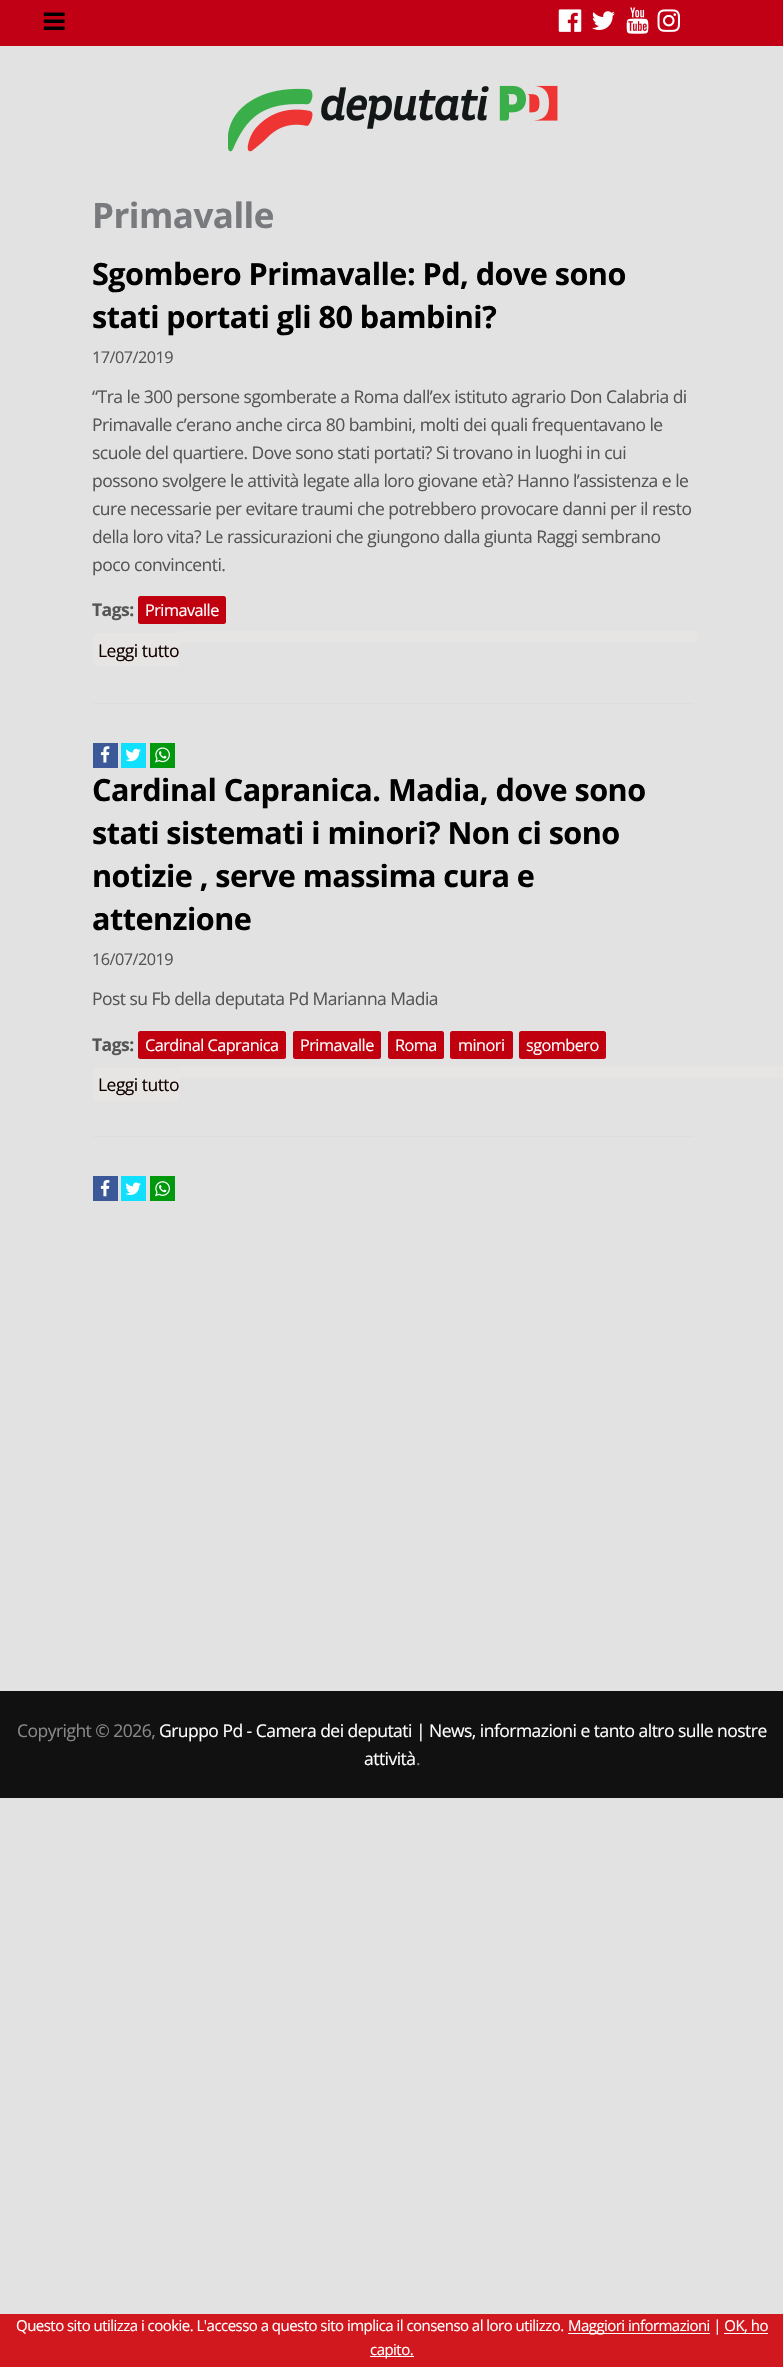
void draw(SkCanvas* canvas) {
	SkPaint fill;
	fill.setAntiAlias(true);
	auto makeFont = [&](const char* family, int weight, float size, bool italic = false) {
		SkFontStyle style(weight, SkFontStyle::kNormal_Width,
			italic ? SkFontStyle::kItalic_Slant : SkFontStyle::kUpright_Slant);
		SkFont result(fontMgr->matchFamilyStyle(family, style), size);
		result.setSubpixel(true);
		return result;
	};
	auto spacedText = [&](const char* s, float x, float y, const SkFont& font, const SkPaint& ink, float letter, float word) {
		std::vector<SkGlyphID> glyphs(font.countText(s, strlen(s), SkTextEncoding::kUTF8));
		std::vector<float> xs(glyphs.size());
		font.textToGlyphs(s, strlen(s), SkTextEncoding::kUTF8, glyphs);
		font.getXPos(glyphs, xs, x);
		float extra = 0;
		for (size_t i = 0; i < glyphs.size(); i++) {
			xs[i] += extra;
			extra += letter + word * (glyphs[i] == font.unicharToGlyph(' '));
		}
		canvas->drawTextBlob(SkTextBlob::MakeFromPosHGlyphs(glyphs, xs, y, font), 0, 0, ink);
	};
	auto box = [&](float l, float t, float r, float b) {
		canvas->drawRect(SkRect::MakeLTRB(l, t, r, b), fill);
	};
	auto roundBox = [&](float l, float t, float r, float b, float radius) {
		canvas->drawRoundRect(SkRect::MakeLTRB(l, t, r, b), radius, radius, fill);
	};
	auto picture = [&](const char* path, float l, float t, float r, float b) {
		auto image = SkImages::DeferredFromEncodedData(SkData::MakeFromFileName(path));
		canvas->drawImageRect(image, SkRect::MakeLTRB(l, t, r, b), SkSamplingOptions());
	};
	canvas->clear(0xFFE2E2E2);
	fill.setColor(0xFFC10015);
	box(0, 0, 783, 46);
	picture("image0.png", 43, 12, 65, 30);
	picture("image1.png", 558, 9, 582, 32);
	picture("image2.png", 592, 11, 615, 30);
	picture("image3.png", 626, 7, 649, 34);
	picture("image4.png", 657, 9, 680, 32);
	picture("image5.png", 228, 85, 558, 152);
	fill.setColor(0xFFDDDDDD);
	box(93, 703, 693, 704);
	fill.setColor(0xFFC0000F);
	roundBox(138, 596, 226, 624, 2.5f);
	fill.setColor(0xFFE7E5E3);
	canvas->drawPath(SkPathBuilder().moveTo(98, 633).lineTo(179, 633).lineTo(179, 666).lineTo(98, 666).cubicTo(95, 666, 93, 664, 93, 661).lineTo(93, 638).cubicTo(93, 635, 95, 633, 98, 633).close().detach(), fill);
	canvas->drawPath(SkPathBuilder().moveTo(179, 631).lineTo(693, 631).cubicTo(696, 631, 698, 633, 698, 636).lineTo(698, 638).cubicTo(698, 641, 696, 643, 693, 643).lineTo(179, 643).close().detach(), fill);
	fill.setColor(0xFF3B5998);
	box(93, 743, 118, 768);
	picture("image6.png", 100, 746, 110, 763);
	fill.setColor(0xFF10DFFD);
	box(121, 743, 146, 768);
	picture("image7.png", 125, 748, 141, 762);
	fill.setColor(0xFF00990D);
	box(150, 743, 175, 768);
	picture("image8.png", 155, 747, 170, 763);
	fill.setColor(0xFFDDDDDD);
	box(93, 1136, 693, 1137);
	fill.setColor(0xFFC0000F);
	roundBox(138, 1031, 286, 1059, 2.5f);
	roundBox(293, 1031, 381, 1059, 2.5f);
	roundBox(388, 1031, 444, 1059, 2.5f);
	roundBox(450, 1031, 513, 1059, 2.5f);
	roundBox(519, 1031, 606, 1059, 2.5f);
	fill.setColor(0xFFE7E5E3);
	canvas->drawPath(SkPathBuilder().moveTo(98, 1068).lineTo(179, 1068).lineTo(179, 1101).lineTo(98, 1101).cubicTo(95, 1101, 93, 1099, 93, 1096).lineTo(93, 1073).cubicTo(93, 1070, 95, 1068, 98, 1068).close().detach(), fill);
	box(179, 1066, 783, 1078);
	fill.setColor(0xFF3B5998);
	box(93, 1176, 118, 1201);
	picture("image9.png", 100, 1180, 110, 1197);
	fill.setColor(0xFF10DFFD);
	box(121, 1176, 146, 1201);
	picture("image10.png", 125, 1182, 141, 1195);
	fill.setColor(0xFF00990D);
	box(150, 1176, 175, 1201);
	picture("image11.png", 155, 1181, 170, 1197);
	fill.setColor(0xFF111111);
	box(0, 1691, 783, 1798);
	fill.setColor(0xFFD2181F);
	box(0, 2314, 783, 2367);
	fill.setColor(0xFFFFFFFF);
	box(568, 2333, 710, 2334);
	box(724, 2333, 768, 2334);
	box(370, 2356, 414, 2357);
	auto font1 = makeFont("Open Sans", 700, 35);
	fill.setColor(0xFF797A7D);
	spacedText("Primavalle", 92, 228, font1, fill, -0.53f, 0);
	auto font2 = makeFont("Open Sans", 700, 30.6f);
	fill.setColor(0xFF000000);
	spacedText("Sgombero Primavalle: Pd, dove sono", 92, 285, font2, fill, -0.53f, 0);
	spacedText("stati portati gli 80 bambini?", 92, 328, font2, fill, -0.53f, 0);
	auto font3 = makeFont("Open Sans", 400, 16.25f);
	fill.setColor(0xFF555555);
	spacedText("17/07/2019", 92, 363, font3, fill, -0.53f, 0);
	auto font4 = makeFont("Open Sans", 400, 17.5f);
	spacedText("“Tra le 300 persone sgomberate a Roma dall’ex istituto agrario Don Calabria di", 92, 403, font4, fill, -0.53f, 0);
	spacedText("Primavalle c’erano anche circa 80 bambini, molti dei quali frequentavano le", 92, 431, font4, fill, -0.53f, 0);
	spacedText("scuole del quartiere. Dove sono stati portati? Si trovano in luoghi in cui", 92, 459, font4, fill, -0.53f, 0);
	spacedText("possono svolgere le attività legate alla loro giovane età? Hanno l’assistenza e le", 92, 487, font4, fill, -0.53f, 0);
	spacedText("cure necessarie per evitare traumi che potrebbero provocare danni per il resto", 92, 515, font4, fill, -0.53f, 0);
	spacedText("della loro vita? Le rassicurazioni che giungono dalla giunta Raggi sembrano", 92, 543, font4, fill, -0.53f, 0);
	spacedText("poco convincenti.", 92, 571, font4, fill, -0.53f, 0);
	auto font5 = makeFont("Open Sans", 700, 17.5f);
	spacedText("Tags:", 92, 616, font5, fill, -0.53f, 0);
	fill.setColor(0xFFFFFFFF);
	spacedText("Primavalle", 145, 616, font3, fill, -0.53f, 0);
	fill.setColor(0xFF100100);
	spacedText("Leggi tutto", 98, 657, font4, fill, -0.53f, 0);
	fill.setColor(0xFF000000);
	spacedText("Cardinal Capranica. Madia, dove sono", 92, 801, font2, fill, -0.53f, 0);
	spacedText("stati sistemati i minori? Non ci sono", 92, 844, font2, fill, -0.53f, 0);
	spacedText("notizie , serve massima cura e", 92, 887, font2, fill, -0.53f, 0);
	spacedText("attenzione", 92, 930, font2, fill, -0.53f, 0);
	fill.setColor(0xFF555555);
	spacedText("16/07/2019", 92, 965, font3, fill, -0.53f, 0);
	spacedText("Post su Fb della deputata Pd Marianna Madia", 92, 1005, font4, fill, -0.53f, 0);
	spacedText("Tags:", 92, 1051, font5, fill, -0.53f, 0);
	fill.setColor(0xFFFFFFFF);
	spacedText("Cardinal Capranica", 145, 1051, font3, fill, -0.53f, 0);
	spacedText("Primavalle", 300, 1051, font3, fill, -0.53f, 0);
	spacedText("Roma", 395, 1051, font3, fill, -0.53f, 0);
	spacedText("minori", 458, 1051, font3, fill, -0.53f, 0);
	spacedText("sgombero", 526, 1051, font3, fill, -0.53f, 0);
	fill.setColor(0xFF100100);
	spacedText("Leggi tutto", 98, 1091, font4, fill, -0.53f, 0);
	fill.setColor(0xFF888888);
	spacedText("Copyright © 2026,", 17, 1737, font4, fill, -0.53f, 0);
	fill.setColor(0xFFFFFFFF);
	spacedText("Gruppo Pd - Camera dei deputati | News, informazioni e tanto altro sulle nostre", 159, 1737, font4, fill, -0.53f, 0);
	spacedText("attività", 364, 1765, font4, fill, -0.53f, 0);
	fill.setColor(0xFF888888);
	spacedText(".", 416, 1765, font4, fill, -0.53f, 0);
	auto font6 = makeFont("Open Sans", 400, 15);
	fill.setColor(0xFFFFFFFF);
	spacedText("Questo sito utilizza i cookie. L'accesso a questo sito implica il consenso al loro utilizzo.", 16, 2331, font6, fill, -0.53f, 0);
	spacedText("Maggiori informazioni | OK, ho", 568, 2331, font6, fill, -0.53f, 0);
	spacedText("capito.", 370, 2355, font6, fill, -0.53f, 0);
}
